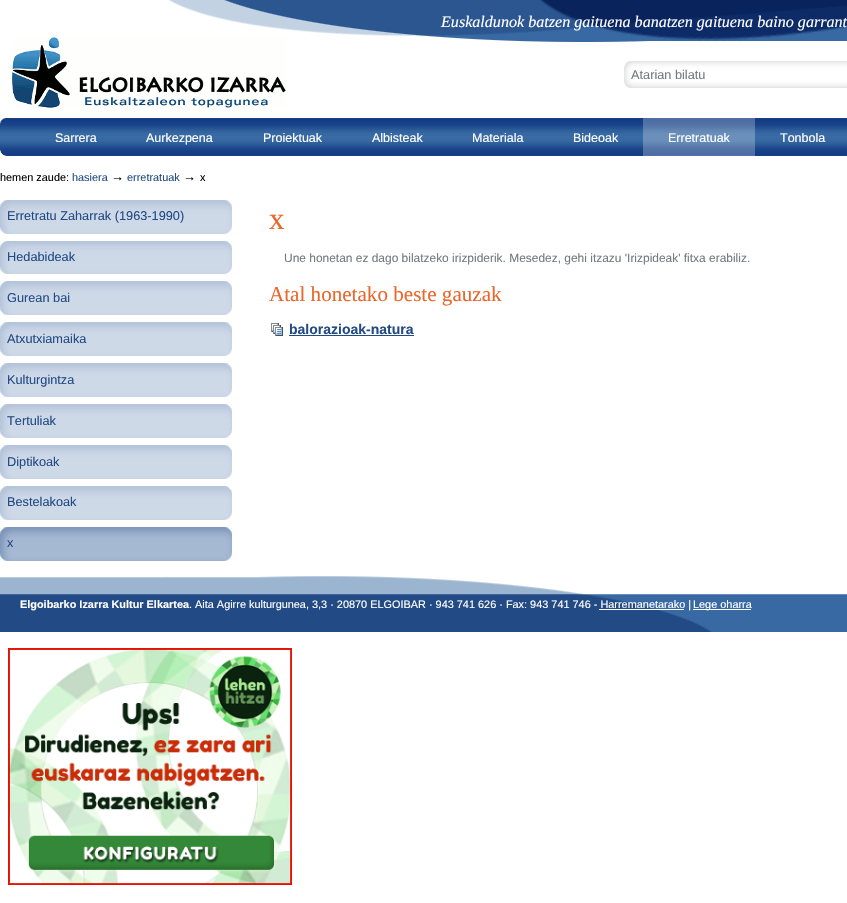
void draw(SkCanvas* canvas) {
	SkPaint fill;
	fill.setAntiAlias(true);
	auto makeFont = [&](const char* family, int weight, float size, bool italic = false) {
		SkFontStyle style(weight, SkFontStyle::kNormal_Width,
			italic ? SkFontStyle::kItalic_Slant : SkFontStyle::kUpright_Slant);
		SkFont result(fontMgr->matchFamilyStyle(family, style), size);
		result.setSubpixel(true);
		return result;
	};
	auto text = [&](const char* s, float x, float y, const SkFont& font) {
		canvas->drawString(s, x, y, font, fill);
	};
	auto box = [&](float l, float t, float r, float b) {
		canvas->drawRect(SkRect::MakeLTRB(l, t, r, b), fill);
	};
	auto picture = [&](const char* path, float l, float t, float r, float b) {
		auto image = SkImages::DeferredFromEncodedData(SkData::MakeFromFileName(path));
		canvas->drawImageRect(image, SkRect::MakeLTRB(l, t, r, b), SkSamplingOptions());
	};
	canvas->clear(0xFFFFFFFF);
	picture("image0.png", 169, 0, 847, 42);
	picture("image1.png", 12, 37, 286, 108);
	picture("image2.png", 624, 61, 847, 88);
	picture("image3.png", 0, 118, 847, 156);
	picture("image4.png", 643, 118, 755, 156);
	picture("image5.png", 0, 200, 232, 234);
	picture("image6.png", 0, 241, 232, 274);
	picture("image5.png", 0, 281, 232, 315);
	picture("image5.png", 0, 322, 232, 356);
	picture("image5.png", 0, 363, 232, 397);
	picture("image5.png", 0, 404, 232, 438);
	picture("image5.png", 0, 445, 232, 479);
	picture("image5.png", 0, 486, 232, 520);
	picture("image7.png", 0, 527, 232, 561);
	picture("image8.png", 271, 323, 283, 336);
	fill.setColor(0xFF224A84);
	box(289, 335, 414, 336);
	picture("image9.png", 0, 576, 847, 632);
	fill.setColor(0xFFFFFFFF);
	box(693, 609, 751, 610);
	box(599, 609, 684, 610);
	picture("image10.png", 8, 648, 292, 885);
	auto font1 = makeFont("Liberation Serif", 400, 16.1f, true);
	text("Euskaldunok batzen gaituena banatzen gaituena baino garrant", 441, 27, font1);
	auto font2 = makeFont("Liberation Sans", 400, 12.75f);
	fill.setColor(0xFF76797C);
	text("Atarian bilatu", 631, 79, font2);
	auto font3 = makeFont("Liberation Sans", 400, 12.5f);
	fill.setColor(0xFFFFFFFF);
	text("Sarrera", 55, 142, font3);
	text("Aurkezpena", 146, 142, font3);
	text("Proiektuak", 263, 142, font3);
	text("Albisteak", 372, 142, font3);
	text("Materiala", 472, 142, font3);
	text("Bideoak", 573, 142, font3);
	text("Erretratuak", 668, 142, font3);
	text("Tonbola", 780, 142, font3);
	auto font4 = makeFont("Liberation Sans", 400, 10.9f);
	fill.setColor(0xFF000000);
	text("hemen zaude:", 0, 181, font4);
	fill.setColor(0xFF224A84);
	text("hasiera", 72, 181, font4);
	auto font5 = makeFont("Liberation Sans", 400, 13);
	fill.setColor(0xFF000000);
	text("→", 111, 181, font5);
	fill.setColor(0xFF224A84);
	text("erretratuak", 127, 181, font4);
	fill.setColor(0xFF000000);
	text("→", 183, 181, font5);
	text("x", 200, 181, font4);
	fill.setColor(0xFF224A84);
	text("Erretratu Zaharrak (1963-1990)", 7, 220, font2);
	text("Hedabideak", 7, 261, font2);
	text("Gurean bai", 7, 302, font2);
	text("Atxutxiamaika", 7, 343, font2);
	text("Kulturgintza", 7, 384, font2);
	text("Tertuliak", 7, 425, font2);
	text("Diptikoak", 7, 466, font2);
	text("Bestelakoak", 7, 506, font2);
	text("x", 7, 547, font2);
	auto font6 = makeFont("Liberation Serif", 400, 31);
	fill.setColor(0xFFEA662B);
	text("x", 269, 229, font6);
	auto font7 = makeFont("Liberation Sans", 400, 11.95f);
	fill.setColor(0xFF76797C);
	text("Une honetan ez dago bilatzeko irizpiderik. Mesedez, gehi itzazu 'Irizpideak' fitxa erabiliz.", 284, 262, font7);
	auto font8 = makeFont("Liberation Serif", 400, 21.1f);
	fill.setColor(0xFFEA662B);
	text("Atal honetako beste gauzak", 269, 301, font8);
	auto font9 = makeFont("Liberation Sans", 700, 14);
	fill.setColor(0xFF224A84);
	text("balorazioak-natura", 289, 334, font9);
	auto font10 = makeFont("Liberation Sans", 700, 10.9f);
	fill.setColor(0xFFFFFFFF);
	text("Elgoibarko Izarra Kultur Elkartea", 20, 608, font10);
	text(". Aita Agirre kulturgunea, 3,3 · 20870 ELGOIBAR · 943 741 626 · Fax: 943 741 746 - Harremanetarako |", 189, 608, font4);
	text("Lege oharra", 693, 608, font4);
}
